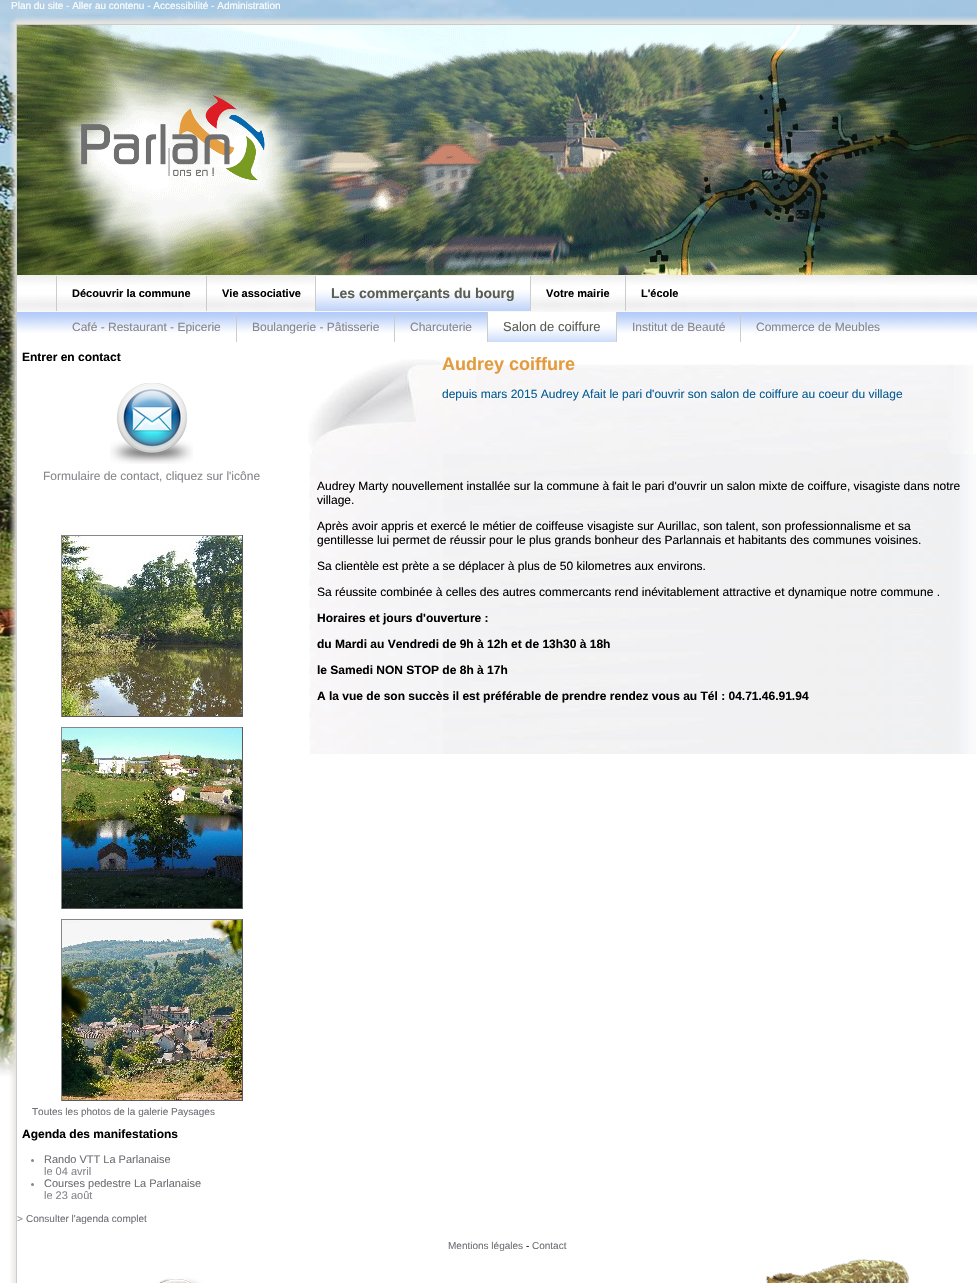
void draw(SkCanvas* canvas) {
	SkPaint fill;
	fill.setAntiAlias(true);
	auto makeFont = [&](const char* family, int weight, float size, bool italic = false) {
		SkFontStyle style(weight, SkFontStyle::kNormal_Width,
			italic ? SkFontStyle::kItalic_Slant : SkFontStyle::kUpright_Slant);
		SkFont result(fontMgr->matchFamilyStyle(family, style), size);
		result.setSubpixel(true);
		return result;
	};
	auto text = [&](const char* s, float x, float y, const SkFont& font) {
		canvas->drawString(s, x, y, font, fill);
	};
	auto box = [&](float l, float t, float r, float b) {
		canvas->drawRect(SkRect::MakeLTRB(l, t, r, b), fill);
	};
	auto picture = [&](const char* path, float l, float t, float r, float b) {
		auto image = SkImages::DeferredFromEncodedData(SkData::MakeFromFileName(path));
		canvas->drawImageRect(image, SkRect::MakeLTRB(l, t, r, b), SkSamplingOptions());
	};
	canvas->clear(0xFFFFFFFF);
	picture("image0.png", 0, 0, 977, 1080);
	picture("image1.png", 9, 16, 977, 24);
	picture("image2.png", 9, 24, 16, 1240);
	fill.setColor(0xFFFFFFFF);
	box(17, 333, 977, 1080);
	fill.setColor(0xFFCCCCCC);
	box(16, 24, 977, 25);
	box(16, 24, 17, 1240);
	picture("image3.png", 17, 25, 977, 275);
	picture("image4.png", 81, 95, 265, 181);
	picture("image5.png", 17, 275, 977, 312);
	box(56, 276, 57, 311);
	box(206, 276, 207, 311);
	picture("image6.png", 316, 276, 530, 311);
	box(315, 276, 316, 311);
	box(530, 276, 531, 311);
	box(625, 276, 626, 311);
	picture("image7.png", 17, 312, 977, 333);
	box(236, 312, 237, 342);
	box(394, 312, 395, 342);
	picture("image8.png", 488, 312, 616, 342);
	box(487, 312, 488, 342);
	box(616, 312, 617, 342);
	box(740, 312, 741, 342);
	picture("image9.png", 110, 383, 193, 464);
	fill.setColor(0xFF87868B);
	box(61, 535, 243, 536);
	fill.setColor(0xFF5A595D);
	box(242, 535, 243, 717);
	box(61, 716, 243, 717);
	fill.setColor(0xFF87868B);
	box(61, 535, 62, 717);
	picture("image10.png", 62, 536, 242, 716);
	box(61, 727, 243, 728);
	fill.setColor(0xFF5A595D);
	box(242, 727, 243, 909);
	box(61, 908, 243, 909);
	fill.setColor(0xFF87868B);
	box(61, 727, 62, 909);
	picture("image11.png", 62, 728, 242, 908);
	box(61, 919, 243, 920);
	fill.setColor(0xFF5A595D);
	box(242, 919, 243, 1101);
	box(61, 1100, 243, 1101);
	fill.setColor(0xFF87868B);
	box(61, 919, 62, 1101);
	picture("image12.png", 62, 920, 242, 1100);
	canvas->drawCircle(32.5f, 1160.5f, 1.5f, fill);
	canvas->drawCircle(32.5f, 1184.5f, 1.5f, fill);
	picture("image13.png", 308, 359, 973, 454);
	picture("image14.png", 309, 454, 976, 754);
	picture("image15.png", 10, 1240, 910, 1283);
	auto font1 = makeFont("Liberation Sans", 400, 10);
	fill.setColor(0xFFFFFFFF);
	text("Plan du site - Aller au contenu - Accessibilité - Administration", 11, 9, font1);
	auto font2 = makeFont("Liberation Sans", 700, 11);
	fill.setColor(0xFF000000);
	text("Découvrir la commune", 72, 297, font2);
	text("Vie associative", 222, 297, font2);
	auto font3 = makeFont("Liberation Sans", 700, 14);
	fill.setColor(0xFF5A5E51);
	text("Les commerçants du bourg", 331, 298, font3);
	fill.setColor(0xFF000000);
	text("Votre mairie", 546, 297, font2);
	text("L'école", 641, 297, font2);
	auto font4 = makeFont("Liberation Sans", 400, 12);
	fill.setColor(0xFF87868B);
	text("Café - Restaurant - Epicerie", 72, 331, font4);
	text("Boulangerie - Pâtisserie", 252, 331, font4);
	text("Charcuterie", 410, 331, font4);
	auto font5 = makeFont("Liberation Sans", 400, 13);
	fill.setColor(0xFF5A5E51);
	text("Salon de coiffure", 503, 331, font5);
	fill.setColor(0xFF87868B);
	text("Institut de Beauté", 632, 331, font4);
	text("Commerce de Meubles", 756, 331, font4);
	auto font6 = makeFont("Liberation Sans", 700, 12);
	fill.setColor(0xFF000000);
	text("Entrer en contact", 22, 361, font6);
	fill.setColor(0xFF87868B);
	text("Formulaire de contact, cliquez sur l'icône", 43, 480, font4);
	fill.setColor(0xFF706F75);
	text("Toutes les photos de la galerie Paysages", 32, 1115, font1);
	fill.setColor(0xFF000000);
	text("Agenda des manifestations", 22, 1138, font6);
	auto font7 = makeFont("Liberation Sans", 400, 11);
	fill.setColor(0xFF706F75);
	text("Rando VTT La Parlanaise", 44, 1163, font7);
	fill.setColor(0xFF87868B);
	text("le 04 avril", 44, 1175, font7);
	fill.setColor(0xFF706F75);
	text("Courses pedestre La Parlanaise", 44, 1187, font7);
	fill.setColor(0xFF87868B);
	text("le 23 août", 44, 1199, font7);
	text(">", 17, 1222, font1);
	fill.setColor(0xFF706F75);
	text("Consulter l'agenda complet", 26, 1222, font1);
	auto font8 = makeFont("Liberation Sans", 700, 18);
	fill.setColor(0xFFE39B3D);
	text("Audrey coiffure", 442, 370, font8);
	fill.setColor(0xFF085D93);
	text("depuis mars 2015 Audrey Afait le pari d'ouvrir son salon de coiffure au coeur du village", 442, 398, font4);
	fill.setColor(0xFF000000);
	text("Audrey Marty nouvellement installée sur la commune à fait le pari d'ouvrir un salon mixte de coiffure, visagiste dans notre", 317, 490, font4);
	text("village.", 317, 504, font4);
	text("Après avoir appris et exercé le métier de coiffeuse visagiste sur Aurillac, son talent, son professionnalisme et sa", 317, 530, font4);
	text("gentillesse lui permet de réussir pour le plus grands bonheur des Parlannais et habitants des communes voisines.", 317, 544, font4);
	text("Sa clientèle est prète a se déplacer à plus de 50 kilometres aux environs.", 317, 570, font4);
	text("Sa réussite combinée à celles des autres commercants rend inévitablement attractive et dynamique notre commune .", 317, 596, font4);
	text("Horaires et jours d'ouverture :", 317, 622, font6);
	text("du Mardi au Vendredi de 9h à 12h et de 13h30 à 18h", 317, 648, font6);
	text("le Samedi NON STOP de 8h à 17h", 317, 674, font6);
	text("A la vue de son succès il est préférable de prendre rendez vous au Tél : 04.71.46.91.94", 317, 700, font6);
	fill.setColor(0xFF706F75);
	text("Mentions légales", 448, 1249, font1);
	fill.setColor(0xFF000000);
	text("-", 526, 1249, font1);
	fill.setColor(0xFF706F75);
	text("Contact", 532, 1249, font1);
}
